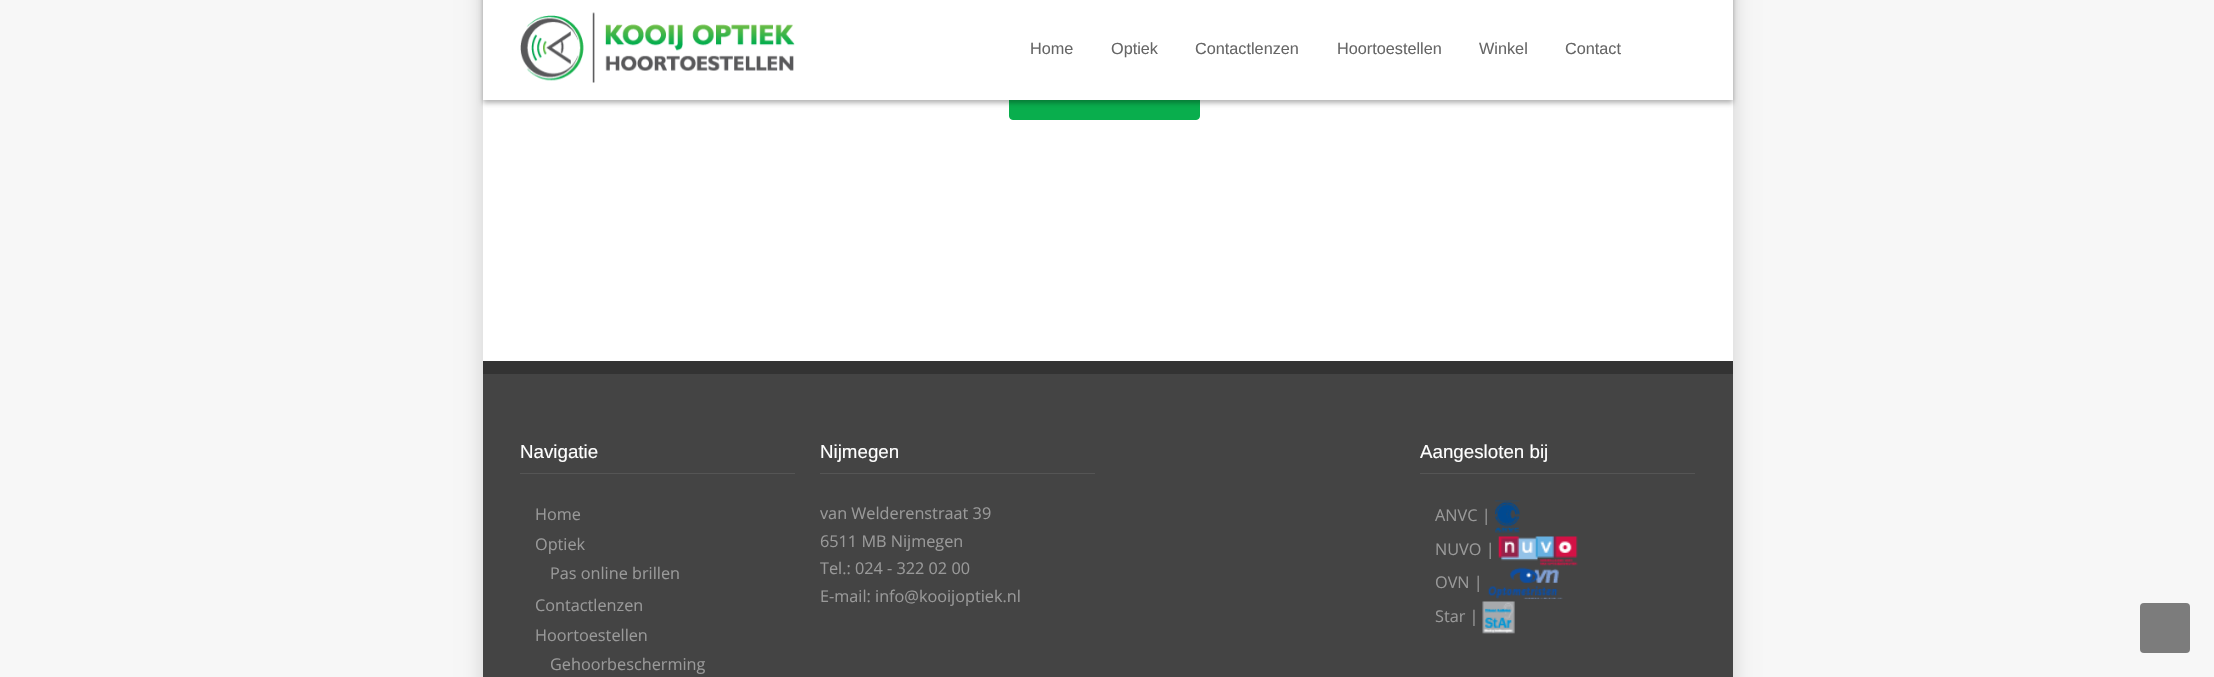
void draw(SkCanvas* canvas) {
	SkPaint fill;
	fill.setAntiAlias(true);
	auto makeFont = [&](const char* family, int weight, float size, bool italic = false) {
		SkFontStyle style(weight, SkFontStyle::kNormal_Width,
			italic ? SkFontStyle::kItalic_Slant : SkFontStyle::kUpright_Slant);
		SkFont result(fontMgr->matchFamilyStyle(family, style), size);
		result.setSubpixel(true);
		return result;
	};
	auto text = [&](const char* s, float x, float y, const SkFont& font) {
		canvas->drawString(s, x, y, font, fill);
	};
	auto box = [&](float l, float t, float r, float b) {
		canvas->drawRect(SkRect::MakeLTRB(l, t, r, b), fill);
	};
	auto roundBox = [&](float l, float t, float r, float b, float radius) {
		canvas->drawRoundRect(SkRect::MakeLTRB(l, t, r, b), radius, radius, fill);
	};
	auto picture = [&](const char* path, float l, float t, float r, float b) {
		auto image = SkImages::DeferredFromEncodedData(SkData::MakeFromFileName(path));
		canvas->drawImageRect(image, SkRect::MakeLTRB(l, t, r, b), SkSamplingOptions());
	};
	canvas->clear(0xFFF7F7F7);
	fill.setColor(0x29000000);
	fill.setMaskFilter(SkMaskFilter::MakeBlur(kNormal_SkBlurStyle, 10));
	canvas->drawRect(SkRect::MakeLTRB(483, -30, 1733, 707), fill);
	fill.setMaskFilter(nullptr);
	fill.setColor(0xFFFFFFFF);
	box(483, 100, 1733, 361);
	fill.setColor(0xFF09AE4D);
	canvas->drawRoundRect(SkRect::MakeLTRB(1009.5f, 63.5f, 1199.5f, 119.5f), 3.5f, 3.5f, fill);
	fill.setStyle(SkPaint::kStroke_Style);
	fill.setStrokeWidth(1);
	canvas->drawRoundRect(SkRect::MakeLTRB(1009.5f, 63.5f, 1199.5f, 119.5f), 3.5f, 3.5f, fill);
	fill.setStyle(SkPaint::kFill_Style);
	fill.setColor(0x4D000000);
	fill.setMaskFilter(SkMaskFilter::MakeBlur(kNormal_SkBlurStyle, 2.5f));
	canvas->drawRect(SkRect::MakeLTRB(483, -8, 1733, 103), fill);
	fill.setMaskFilter(nullptr);
	fill.setColor(0xFFFFFFFF);
	box(483, 0, 1733, 100);
	picture("image0.png", 520, 12, 795, 83);
	fill.setColor(0xFF444444);
	box(483, 374, 1733, 677);
	fill.setColor(0xFF333333);
	box(483, 361, 1733, 374);
	fill.setColor(0xFF555555);
	box(520, 473, 795, 474);
	box(820, 473, 1095, 474);
	box(1420, 473, 1695, 474);
	picture("image1.png", 1495, 500, 1520, 533);
	picture("image2.png", 1498, 536, 1578, 566);
	picture("image3.png", 1488, 567, 1563, 599);
	picture("image4.png", 1482, 601, 1515, 634);
	fill.setColor(0xFF7C7C7C);
	roundBox(2140, 603, 2190, 653, 4);
	auto font1 = makeFont("Liberation Sans", 400, 16.25f);
	fill.setColor(0xFF666666);
	text("Home", 1030, 54, font1);
	text("Optiek", 1111, 54, font1);
	text("Contactlenzen", 1195, 54, font1);
	text("Hoortoestellen", 1337, 54, font1);
	text("Winkel", 1479, 54, font1);
	text("Contact", 1565, 54, font1);
	auto font2 = makeFont("Liberation Sans", 400, 18.75f);
	fill.setColor(0xFFFFFFFF);
	text("Navigatie", 520, 458, font2);
	auto font3 = makeFont("Open Sans", 400, 16.25f);
	fill.setColor(0xFF999999);
	text("Home", 535, 520, font3);
	text("Optiek", 535, 550, font3);
	text("Pas online brillen", 550, 579, font3);
	text("Contactlenzen", 535, 611, font3);
	text("Hoortoestellen", 535, 641, font3);
	text("Gehoorbescherming", 550, 670, font3);
	fill.setColor(0xFFFFFFFF);
	text("Nijmegen", 820, 458, font2);
	fill.setColor(0xFF999999);
	text("van Welderenstraat 39", 820, 519, font3);
	text("6511 MB Nijmegen", 820, 547, font3);
	text("Tel.: 024 - 322 02 00", 820, 574, font3);
	text("E-mail: info@kooijoptiek.nl", 820, 602, font3);
	fill.setColor(0xFFFFFFFF);
	text("Aangesloten bij", 1420, 458, font2);
	fill.setColor(0xFF999999);
	text("ANVC |", 1435, 521, font3);
	text("NUVO |", 1435, 555, font3);
	text("OVN |", 1435, 588, font3);
	text("Star |", 1435, 622, font3);
}
